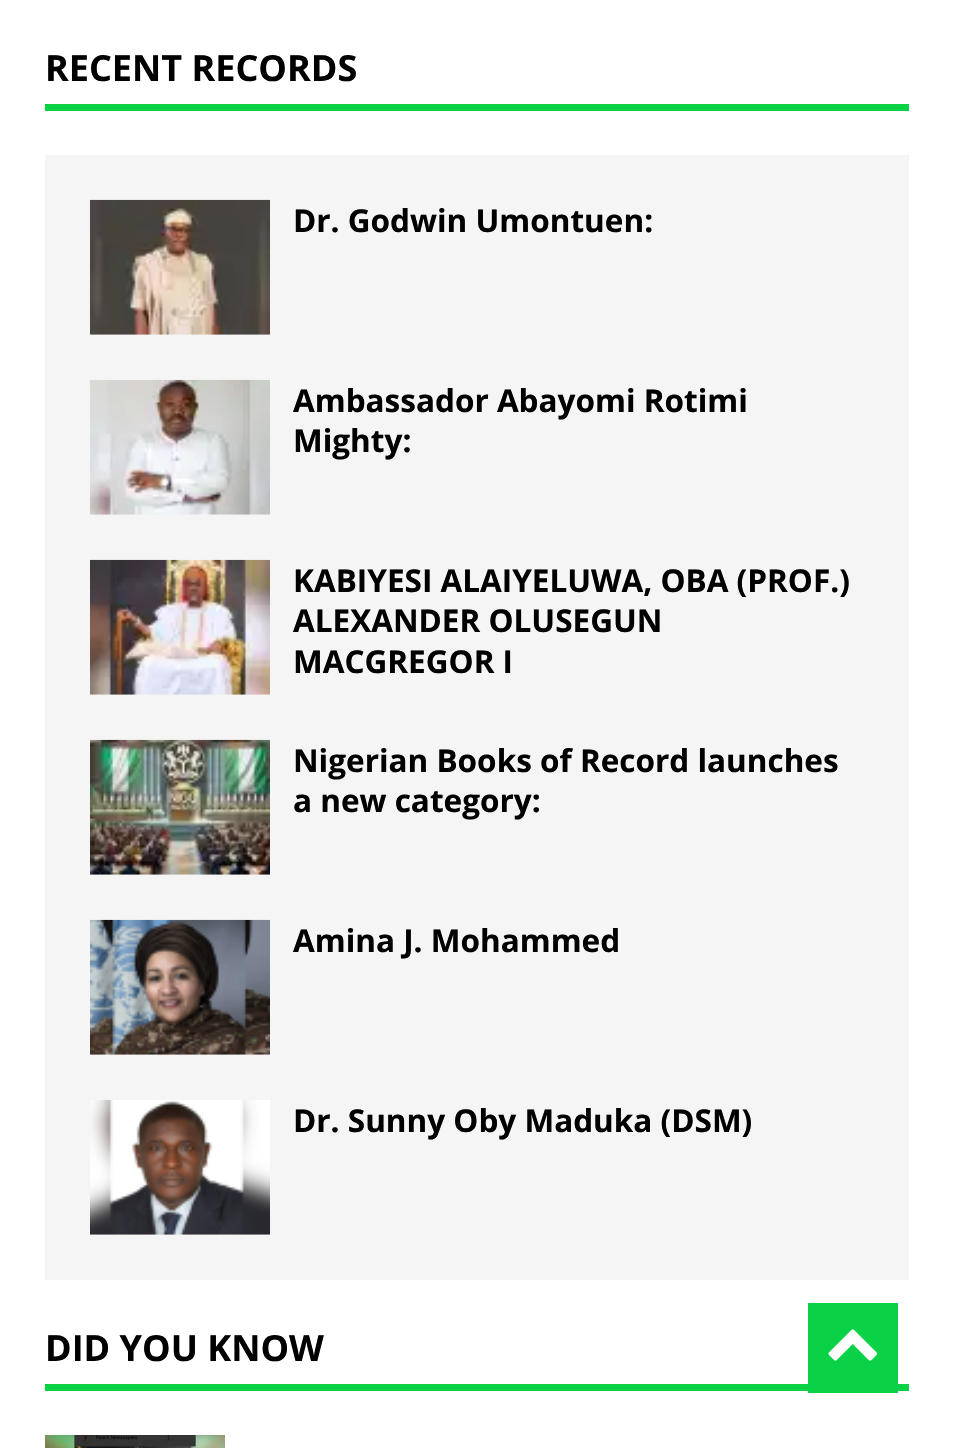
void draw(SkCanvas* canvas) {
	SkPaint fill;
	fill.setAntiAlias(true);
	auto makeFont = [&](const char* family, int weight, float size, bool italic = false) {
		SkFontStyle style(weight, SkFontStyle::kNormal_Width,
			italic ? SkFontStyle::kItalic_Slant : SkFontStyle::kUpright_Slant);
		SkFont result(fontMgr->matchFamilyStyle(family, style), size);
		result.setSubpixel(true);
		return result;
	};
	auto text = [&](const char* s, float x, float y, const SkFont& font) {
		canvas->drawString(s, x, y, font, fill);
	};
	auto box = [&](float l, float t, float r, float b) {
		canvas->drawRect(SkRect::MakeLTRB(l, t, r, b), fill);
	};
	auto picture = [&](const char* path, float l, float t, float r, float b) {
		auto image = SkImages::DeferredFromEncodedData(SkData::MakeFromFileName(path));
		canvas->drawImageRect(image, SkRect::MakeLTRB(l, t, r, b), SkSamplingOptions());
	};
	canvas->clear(0xFFFFFFFF);
	fill.setColor(0xFF0AD146);
	box(45, 104, 909, 111);
	fill.setColor(0xFFF5F5F5);
	box(45, 155, 909, 1280);
	picture("image0.png", 90, 199, 270, 335);
	picture("image1.png", 90, 379, 270, 515);
	picture("image2.png", 90, 559, 270, 695);
	picture("image3.png", 90, 739, 270, 875);
	picture("image4.png", 90, 919, 270, 1055);
	picture("image5.png", 90, 1100, 270, 1235);
	fill.setColor(0xFF0AD146);
	box(45, 1384, 909, 1391);
	picture("image6.png", 45, 1435, 225, 1448);
	box(808, 1303, 898, 1393);
	picture("image7.png", 828, 1329, 877, 1361);
	auto font1 = makeFont("Open Sans", 700, 36);
	fill.setColor(0xFF000000);
	text("RECENT RECORDS", 45, 81, font1);
	auto font2 = makeFont("Open Sans", 700, 31.5f);
	text("Dr. Godwin Umontuen:", 293, 232, font2);
	text("Ambassador Abayomi Rotimi", 293, 412, font2);
	text("Mighty:", 293, 452, font2);
	text("KABIYESI ALAIYELUWA, OBA (PROF.)", 293, 592, font2);
	text("ALEXANDER OLUSEGUN", 293, 632, font2);
	text("MACGREGOR I", 293, 673, font2);
	text("Nigerian Books of Record launches", 293, 772, font2);
	text("a new category:", 293, 812, font2);
	text("Amina J. Mohammed", 293, 952, font2);
	text("Dr. Sunny Oby Maduka (DSM)", 293, 1132, font2);
	text("DID YOU KNOW", 45, 1361, font1);
}
